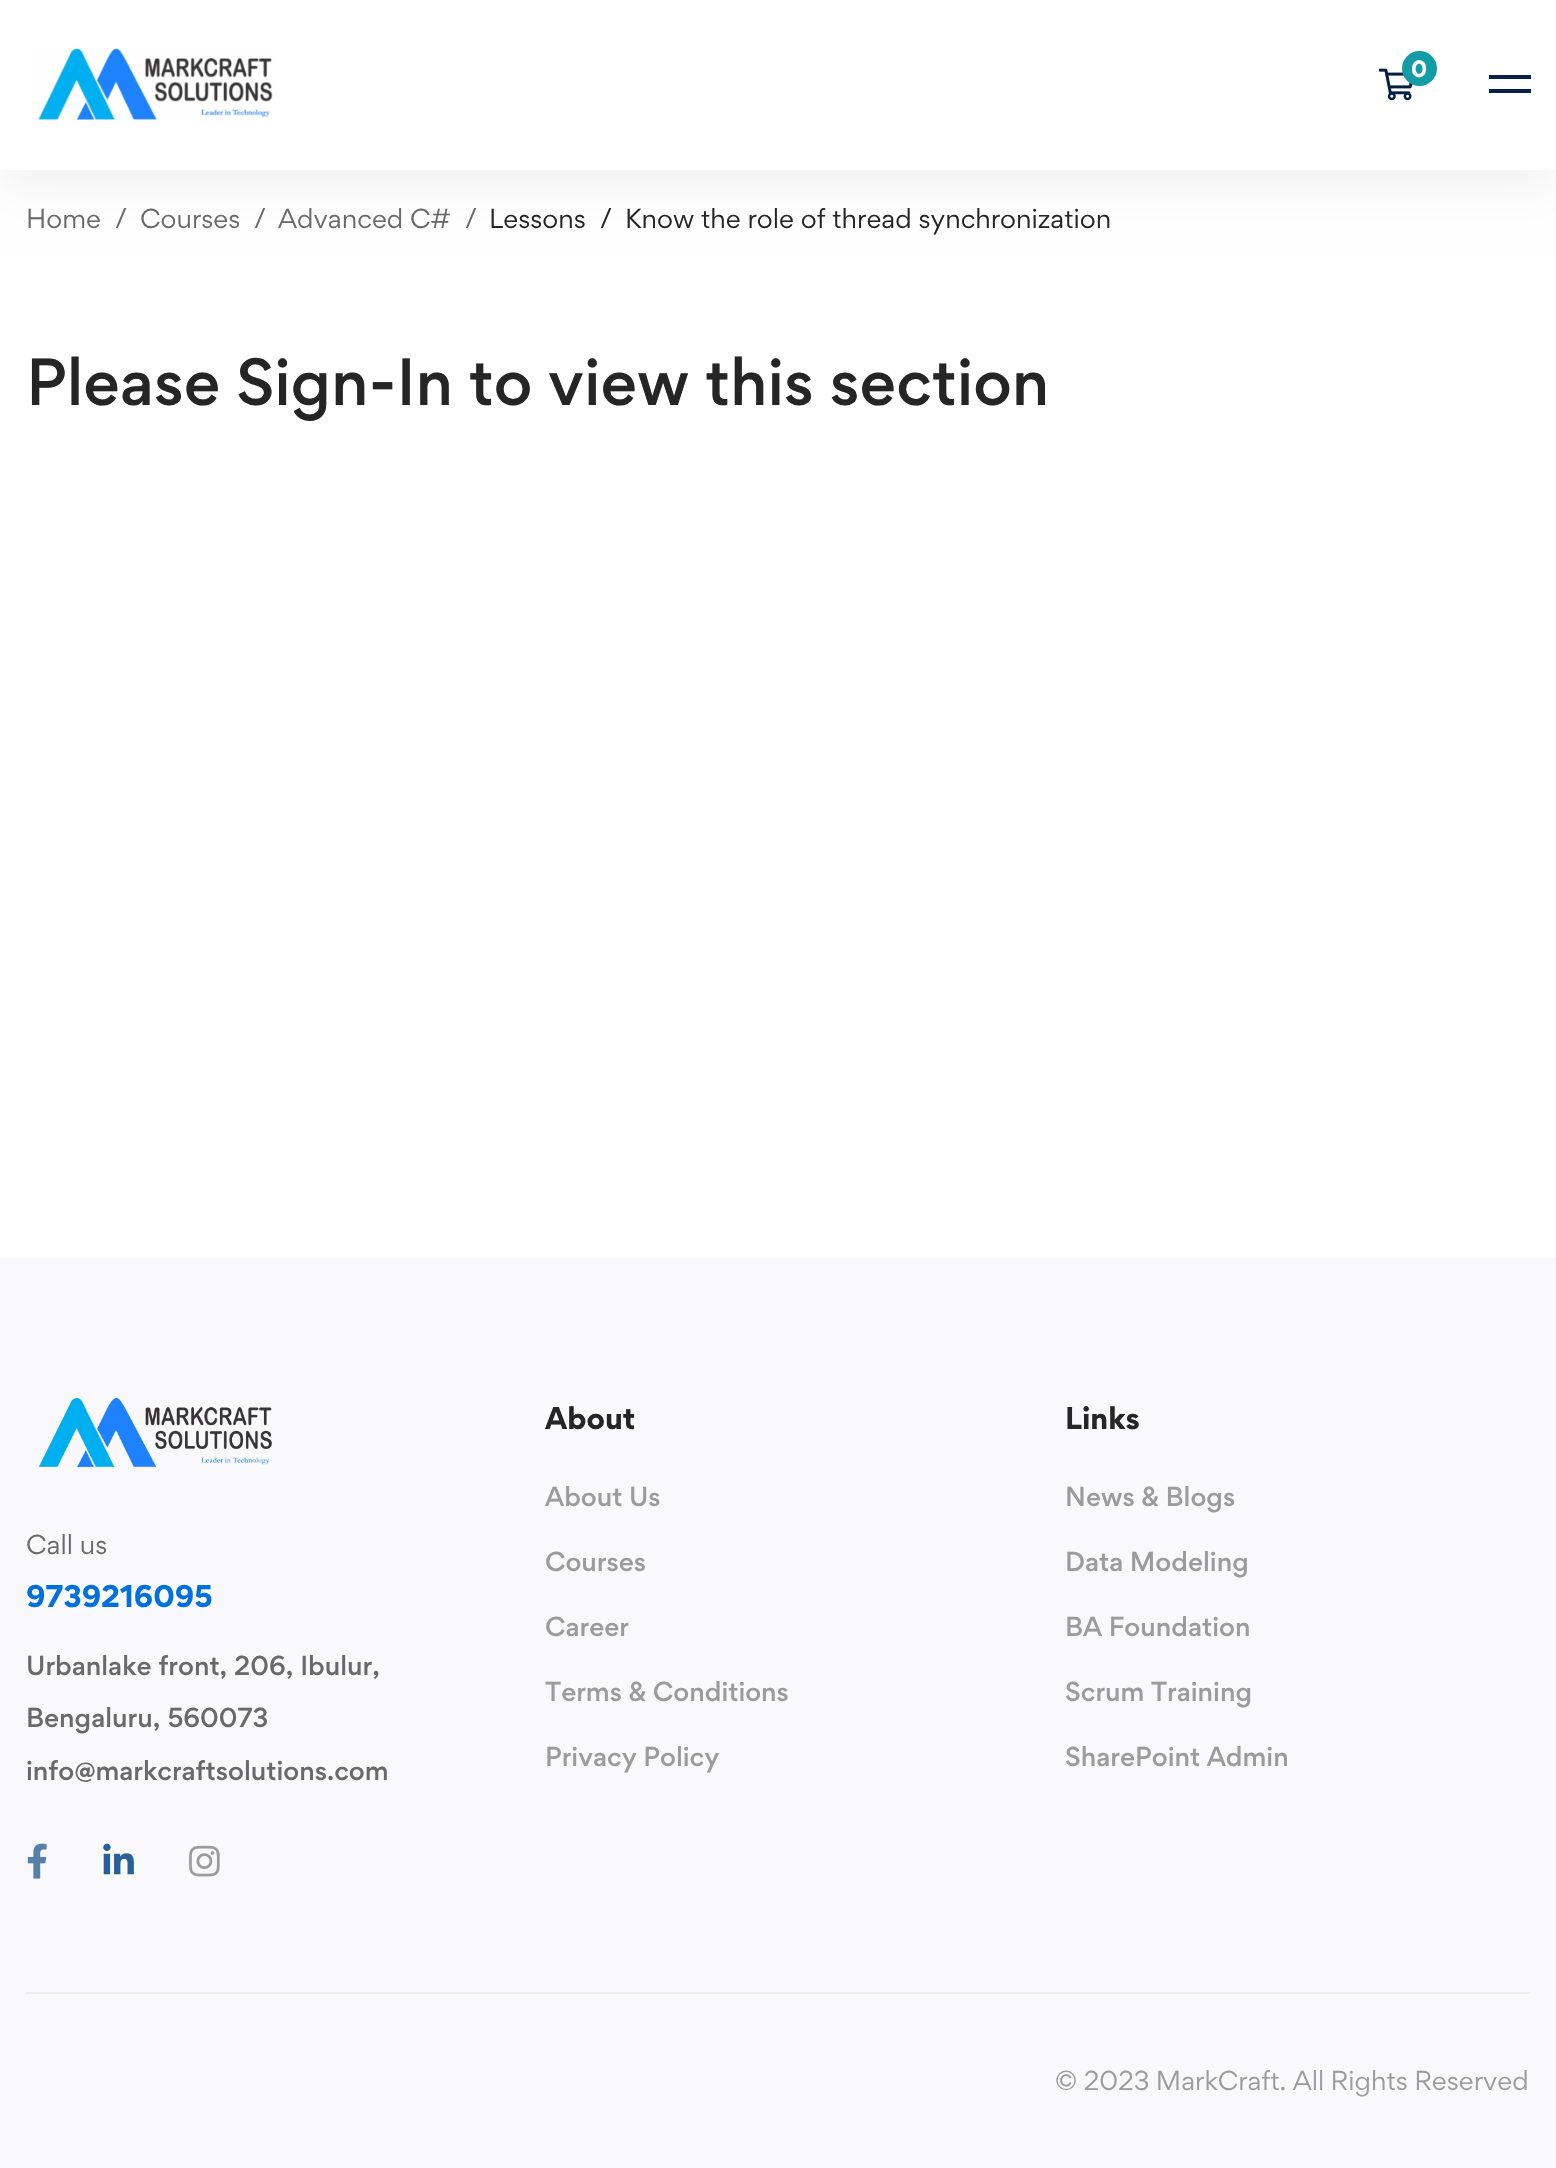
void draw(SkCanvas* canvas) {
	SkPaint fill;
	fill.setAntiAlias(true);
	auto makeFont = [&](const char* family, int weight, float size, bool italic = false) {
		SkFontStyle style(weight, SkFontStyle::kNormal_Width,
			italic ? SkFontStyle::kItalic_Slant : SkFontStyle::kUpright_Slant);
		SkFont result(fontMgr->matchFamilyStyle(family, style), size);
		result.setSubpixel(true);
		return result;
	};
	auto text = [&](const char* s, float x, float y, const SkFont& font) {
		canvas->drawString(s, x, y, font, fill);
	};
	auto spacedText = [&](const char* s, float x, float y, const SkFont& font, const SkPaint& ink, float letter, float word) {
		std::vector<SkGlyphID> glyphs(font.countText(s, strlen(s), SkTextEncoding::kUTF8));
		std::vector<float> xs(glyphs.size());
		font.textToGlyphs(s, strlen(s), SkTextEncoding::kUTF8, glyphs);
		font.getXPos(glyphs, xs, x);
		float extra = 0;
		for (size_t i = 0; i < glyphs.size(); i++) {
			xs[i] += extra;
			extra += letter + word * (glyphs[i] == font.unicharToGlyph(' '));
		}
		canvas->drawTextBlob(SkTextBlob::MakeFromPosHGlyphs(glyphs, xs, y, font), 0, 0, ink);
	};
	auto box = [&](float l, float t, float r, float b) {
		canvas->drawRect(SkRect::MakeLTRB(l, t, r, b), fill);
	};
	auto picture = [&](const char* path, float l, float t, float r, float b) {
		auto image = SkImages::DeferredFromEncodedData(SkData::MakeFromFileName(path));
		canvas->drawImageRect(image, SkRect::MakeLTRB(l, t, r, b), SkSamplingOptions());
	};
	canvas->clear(0xFFFFFFFF);
	fill.setColor(0x0D000000);
	fill.setMaskFilter(SkMaskFilter::MakeBlur(kNormal_SkBlurStyle, 23));
	canvas->drawRect(SkRect::MakeLTRB(0, 18, 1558, 187), fill);
	fill.setMaskFilter(nullptr);
	fill.setColor(0xFFFFFFFF);
	box(0, 0, 1556, 170);
	picture("image0.png", 38, 48, 273, 121);
	picture("image1.png", 1379, 68, 1413, 101);
	fill.setColor(0xFF129CA6);
	canvas->drawCircle(1419.5f, 68.5f, 17.5f, fill);
	fill.setColor(0xFF062144);
	box(1489, 75, 1531, 79);
	box(1489, 89, 1531, 93);
	fill.setColor(0xFFF9F9FB);
	box(0, 1258, 1556, 2168);
	picture("image2.png", 38, 1397, 272, 1467);
	picture("image3.png", 27, 1843, 47, 1879);
	picture("image4.png", 103, 1843, 134, 1875);
	picture("image5.png", 189, 1845, 220, 1877);
	fill.setColor(0xFFEDEDED);
	box(26, 1992, 1531, 1994);
	auto font1 = makeFont("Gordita", 700, 21);
	fill.setColor(0xFFFFFFFF);
	text("0", 1411, 77, font1);
	auto font2 = makeFont("Gordita", 400, 24.5f);
	fill.setColor(0xFF696969);
	text("Home", 26, 228, font2);
	text("/", 115, 228, font2);
	text("Courses", 140, 228, font2);
	text("/", 254, 228, font2);
	text("Advanced C#", 278, 228, font2);
	text("/", 465, 228, font2);
	fill.setColor(0xFF252525);
	text("Lessons", 489, 228, font2);
	text("/", 600, 228, font2);
	text("Know the role of thread synchronization", 625, 228, font2);
	auto font3 = makeFont("Gordita", 500, 59.5f);
	text("Please Sign-In to view this section", 26, 405, font3);
	fill.setColor(0xFF696969);
	text("Call us", 26, 1554, font2);
	auto font4 = makeFont("Gordita", 700, 28);
	fill.setColor(0xFF0071DC);
	text("9739216095", 26, 1607, font4);
	auto font5 = makeFont("Gordita", 500, 24.5f);
	fill.setColor(0xFF696969);
	spacedText("Urbanlake front, 206, Ibulur,", 26, 1675, font5, fill, 0, 0.5f);
	spacedText("Bengaluru, 560073", 26, 1727, font5, fill, 0, 1);
	text("info@markcraftsolutions.com", 26, 1780, font5);
	fill.setColor(0xFF252525);
	text("About", 545, 1429, font4);
	fill.setColor(0xFF9B9B9B);
	text("About Us", 545, 1506, font5);
	text("Courses", 545, 1571, font5);
	text("Career", 545, 1636, font5);
	text("Terms & Conditions", 545, 1701, font5);
	text("Privacy Policy", 545, 1766, font5);
	fill.setColor(0xFF252525);
	text("Links", 1065, 1429, font4);
	fill.setColor(0xFF9B9B9B);
	text("News & Blogs", 1065, 1506, font5);
	text("Data Modeling", 1065, 1571, font5);
	text("BA Foundation", 1065, 1636, font5);
	text("Scrum Training", 1065, 1701, font5);
	text("SharePoint Admin", 1065, 1766, font5);
	spacedText("© 2023 MarkCraft. All Rights Reserved", 1055, 2090, font2, fill, 0, -0.5f);
}
